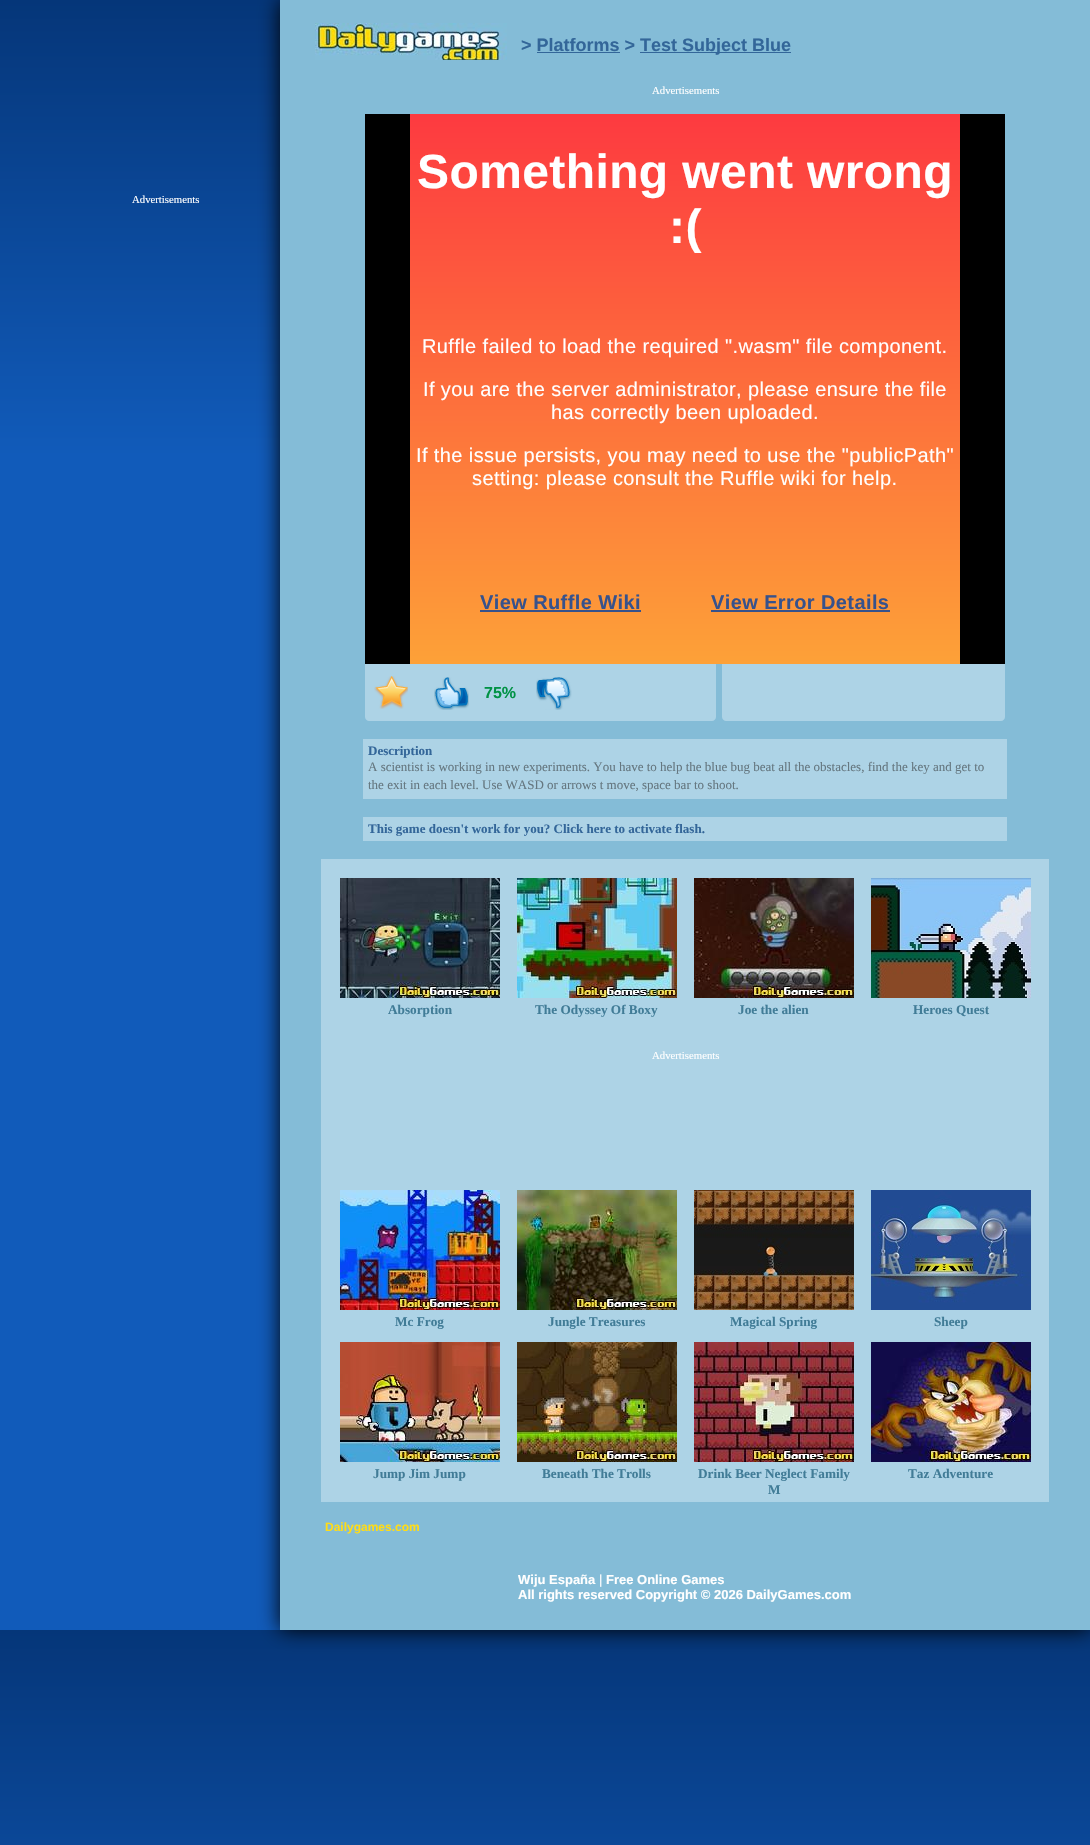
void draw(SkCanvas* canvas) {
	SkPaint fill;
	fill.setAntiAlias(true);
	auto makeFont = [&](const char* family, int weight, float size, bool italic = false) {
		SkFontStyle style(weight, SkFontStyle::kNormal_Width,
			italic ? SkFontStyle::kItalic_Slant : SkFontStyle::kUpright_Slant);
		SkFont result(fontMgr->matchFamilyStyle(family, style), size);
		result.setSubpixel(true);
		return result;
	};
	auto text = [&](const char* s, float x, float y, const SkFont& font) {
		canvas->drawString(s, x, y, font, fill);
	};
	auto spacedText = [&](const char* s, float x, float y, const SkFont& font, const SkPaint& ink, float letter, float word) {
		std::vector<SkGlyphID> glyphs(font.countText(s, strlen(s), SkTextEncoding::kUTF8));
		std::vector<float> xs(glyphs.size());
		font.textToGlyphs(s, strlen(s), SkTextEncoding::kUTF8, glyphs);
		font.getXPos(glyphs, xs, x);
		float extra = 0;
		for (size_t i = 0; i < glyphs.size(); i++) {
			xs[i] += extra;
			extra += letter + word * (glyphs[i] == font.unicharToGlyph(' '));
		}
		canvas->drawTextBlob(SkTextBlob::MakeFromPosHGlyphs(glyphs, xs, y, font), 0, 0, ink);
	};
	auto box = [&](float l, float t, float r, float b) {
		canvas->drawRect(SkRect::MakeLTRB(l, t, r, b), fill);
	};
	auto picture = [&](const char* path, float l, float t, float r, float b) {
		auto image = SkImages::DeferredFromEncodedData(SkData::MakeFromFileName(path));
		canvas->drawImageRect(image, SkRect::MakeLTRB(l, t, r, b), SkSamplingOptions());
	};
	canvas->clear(0xFFFFFFFF);
	{
		const SkColor colors[] = {0xFF053679, 0xFF115BBA};
		const float stops[] = {0, 0.28f};
		const SkPoint ends[] = {{545, 0}, {545, 1630}};
		fill.setShader(SkGradientShader::MakeLinear(ends, colors, stops, 2, SkTileMode::kClamp));
		fill.setAlpha(255);
	}
	box(0, 0, 280, 1630);
	{
		const SkColor colors[] = {0xFF053679, 0xFF115BBA};
		const float stops[] = {0, 0.28f};
		const SkPoint ends[] = {{545, 1630}, {545, 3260}};
		fill.setShader(SkGradientShader::MakeLinear(ends, colors, stops, 2, SkTileMode::kClamp));
		fill.setAlpha(255);
	}
	box(0, 1630, 1090, 1845);
	fill.setShader(nullptr);
	fill.setColor(0xFF000000);
	fill.setMaskFilter(SkMaskFilter::MakeBlur(kNormal_SkBlurStyle, 10));
	canvas->drawRect(SkRect::MakeLTRB(280, 0, 1090, 1630), fill);
	fill.setMaskFilter(nullptr);
	fill.setColor(0xFF84BCD7);
	box(280, 0, 1090, 1630);
	picture("image0.png", 315, 23, 507, 60);
	fill.setColor(0xFF336699);
	box(640, 52, 791, 53);
	box(537, 52, 620, 53);
	fill.setColor(0xFF000000);
	box(365, 114, 1005, 664);
	{
		const SkColor colors[] = {0xFFFD3A40, 0xFFFDA138};
		const float stops[] = {0, 1};
		const SkPoint ends[] = {{685, 114}, {685, 664}};
		fill.setShader(SkGradientShader::MakeLinear(ends, colors, stops, 2, SkTileMode::kClamp));
		fill.setAlpha(255);
	}
	box(410, 114, 960, 664);
	fill.setShader(nullptr);
	fill.setColor(0xFF37528C);
	box(480, 610, 641, 612);
	box(711, 610, 890, 612);
	fill.setColor(0xFFADD3E6);
	canvas->drawPath(SkPathBuilder().moveTo(365, 664).lineTo(716, 664).lineTo(716, 717).cubicTo(716, 719, 714, 721, 712, 721).lineTo(369, 721).cubicTo(367, 721, 365, 719, 365, 717).close().detach(), fill);
	picture("image1.png", 374, 676, 408, 709);
	picture("image2.png", 434, 677, 469, 710);
	picture("image3.png", 536, 677, 572, 710);
	canvas->drawPath(SkPathBuilder().moveTo(722, 664).lineTo(1005, 664).lineTo(1005, 717).cubicTo(1005, 719, 1003, 721, 1001, 721).lineTo(726, 721).cubicTo(724, 721, 722, 719, 722, 717).close().detach(), fill);
	box(363, 739, 1007, 799);
	box(363, 817, 1007, 841);
	box(321, 859, 1049, 1502);
	picture("image4.png", 340, 878, 500, 998);
	picture("image5.png", 517, 878, 677, 998);
	picture("image6.png", 694, 878, 854, 998);
	picture("image7.png", 871, 878, 1031, 998);
	picture("image8.png", 340, 1190, 500, 1310);
	picture("image9.png", 517, 1190, 677, 1310);
	picture("image10.png", 694, 1190, 854, 1310);
	picture("image11.png", 871, 1190, 1031, 1310);
	picture("image12.png", 340, 1342, 500, 1462);
	picture("image13.png", 517, 1342, 677, 1462);
	picture("image14.png", 694, 1342, 854, 1462);
	picture("image15.png", 871, 1342, 1031, 1462);
	auto font1 = makeFont("Liberation Sans", 700, 18);
	fill.setColor(0xFF336699);
	text("> Platforms >", 521, 51, font1);
	text("Test Subject Blue", 640, 51, font1);
	auto font2 = makeFont("Liberation Serif", 400, 10.75f);
	fill.setColor(0xFFFFFFFF);
	text("Advertisements", 652, 94, font2);
	text("Advertisements", 132, 203, font2);
	auto font3 = makeFont("Liberation Sans", 700, 48);
	spacedText("Something went wrong", 417, 188, font3, fill, 0.4f, 0);
	spacedText(":(", 669, 243, font3, fill, 0.4f, 0);
	auto font4 = makeFont("Liberation Sans", 400, 20);
	spacedText("Ruffle failed to load the required \".wasm\" file component.", 422, 353, font4, fill, 0.4f, 0);
	spacedText("If you are the server administrator, please ensure the file", 423, 396, font4, fill, 0.4f, 0);
	spacedText("has correctly been uploaded.", 551, 419, font4, fill, 0.4f, 0);
	spacedText("If the issue persists, you may need to use the \"publicPath\"", 416, 462, font4, fill, 0.4f, 0);
	spacedText("setting: please consult the Ruffle wiki for help.", 472, 485, font4, fill, 0.4f, 0);
	auto font5 = makeFont("Liberation Sans", 700, 20);
	fill.setColor(0xFF37528C);
	spacedText("View Ruffle Wiki", 480, 609, font5, fill, 0.4f, 0);
	spacedText("View Error Details", 711, 609, font5, fill, 0.4f, 0);
	auto font6 = makeFont("Liberation Sans", 700, 16);
	fill.setColor(0xFF009245);
	text("75%", 484, 698, font6);
	auto font7 = makeFont("Liberation Serif", 700, 13);
	fill.setColor(0xFF336699);
	text("Description", 368, 755, font7);
	auto font8 = makeFont("Liberation Serif", 400, 13);
	fill.setColor(0xFF657780);
	text("A scientist is working in new experiments. You have to help the blue bug beat all the obstacles, find the key and get to", 368, 771, font8);
	text("the exit in each level. Use WASD or arrows t move, space bar to shoot.", 368, 789, font8);
	fill.setColor(0xFF336699);
	text("This game doesn't work for you? Click here to activate flash.", 368, 833, font7);
	auto font9 = makeFont("Liberation Serif", 700, 13.25f);
	fill.setColor(0xFF417C97);
	text("Absorption", 388, 1014, font9);
	text("The Odyssey Of Boxy", 535, 1014, font9);
	text("Joe the alien", 738, 1014, font9);
	text("Heroes Quest", 913, 1014, font9);
	fill.setColor(0xFFFFFFFF);
	text("Advertisements", 652, 1059, font2);
	fill.setColor(0xFF417C97);
	text("Mc Frog", 395, 1326, font9);
	text("Jungle Treasures", 548, 1326, font9);
	text("Magical Spring", 730, 1326, font9);
	text("Sheep", 934, 1326, font9);
	text("Jump Jim Jump", 373, 1478, font9);
	text("Beneath The Trolls", 542, 1478, font9);
	text("Drink Beer Neglect Family", 698, 1478, font9);
	text("M", 768, 1494, font9);
	text("Taz Adventure", 908, 1478, font9);
	auto font10 = makeFont("Liberation Sans", 700, 12);
	fill.setColor(0xFFFFDC17);
	text("Dailygames.com", 325, 1531, font10);
	auto font11 = makeFont("Liberation Sans", 700, 13);
	fill.setColor(0xFFFFFFFF);
	text("Wiju España", 518, 1584, font11);
	auto font12 = makeFont("Liberation Sans", 400, 13);
	text("|", 599, 1584, font12);
	text("Free Online Games", 606, 1584, font11);
	text("All rights reserved Copyright © 2026 DailyGames.com", 518, 1599, font11);
}
